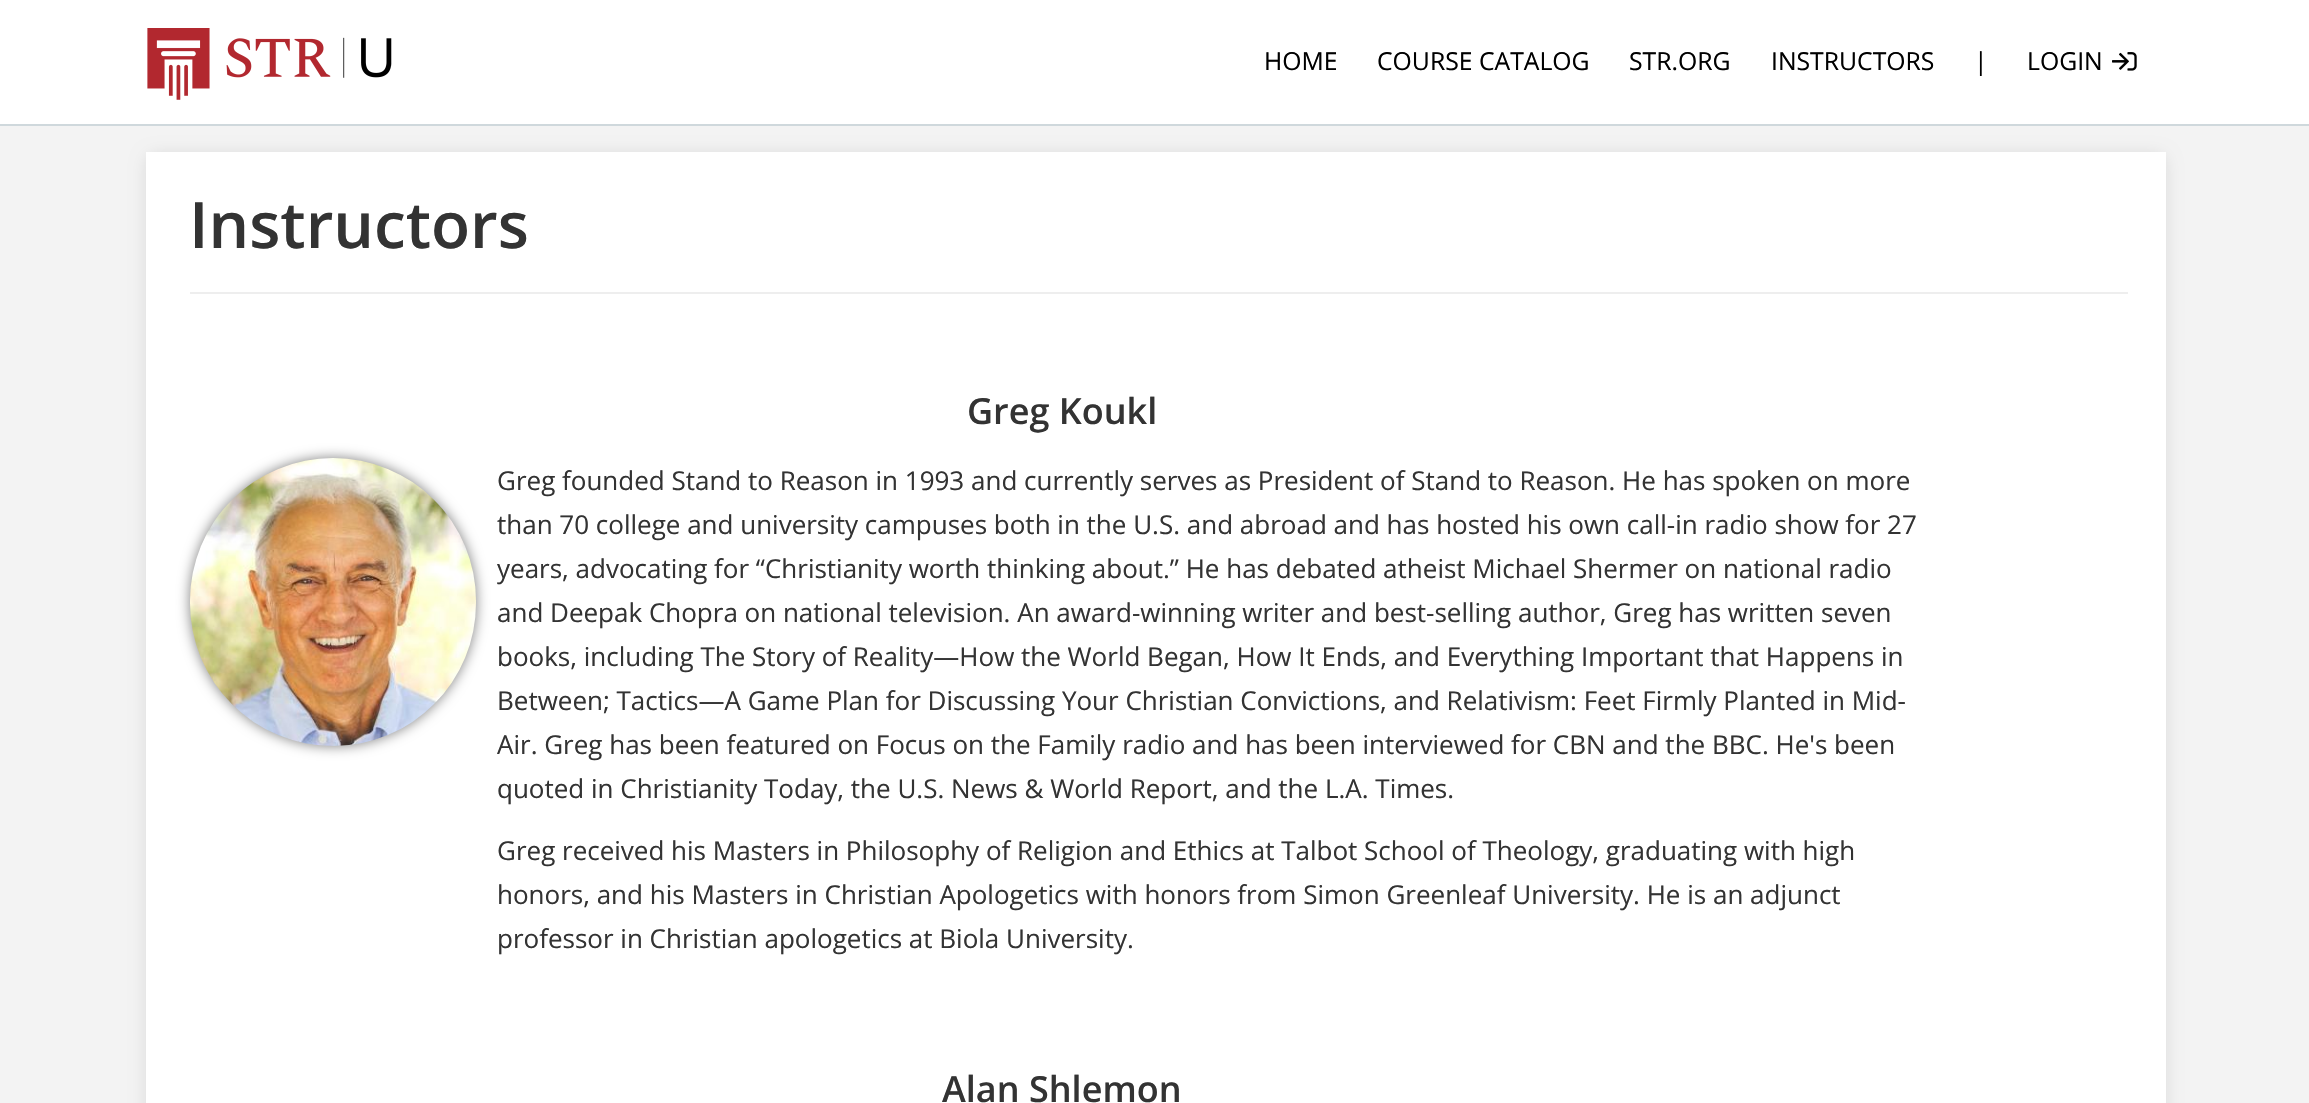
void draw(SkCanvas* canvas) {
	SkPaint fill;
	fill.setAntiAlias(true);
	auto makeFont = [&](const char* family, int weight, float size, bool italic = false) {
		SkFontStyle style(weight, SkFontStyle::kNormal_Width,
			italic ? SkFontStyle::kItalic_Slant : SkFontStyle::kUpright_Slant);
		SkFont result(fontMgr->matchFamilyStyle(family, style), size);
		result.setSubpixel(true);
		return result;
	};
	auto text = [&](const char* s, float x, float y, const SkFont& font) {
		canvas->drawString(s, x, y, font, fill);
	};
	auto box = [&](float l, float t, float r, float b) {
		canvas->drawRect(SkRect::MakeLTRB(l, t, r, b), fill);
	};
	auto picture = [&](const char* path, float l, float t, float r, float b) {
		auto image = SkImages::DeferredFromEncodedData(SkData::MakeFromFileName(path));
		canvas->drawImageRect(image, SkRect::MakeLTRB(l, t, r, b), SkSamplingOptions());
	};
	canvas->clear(0xFFF3F3F3);
	fill.setColor(0xFFFFFFFF);
	box(0, 0, 2309, 124);
	fill.setColor(0xFFCFD8DC);
	box(0, 124, 2309, 126);
	picture("image0.png", 147, 28, 392, 100);
	picture("image1.png", 2112, 52, 2137, 71);
	fill.setColor(0x1A000000);
	fill.setMaskFilter(SkMaskFilter::MakeBlur(kNormal_SkBlurStyle, 8));
	canvas->drawRoundRect(SkRect::MakeLTRB(146, 154, 2166, 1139), 12, 12, fill);
	fill.setMaskFilter(nullptr);
	fill.setColor(0xFFFFFFFF);
	box(146, 152, 2166, 1103);
	fill.setColor(0xFFEEEEEE);
	box(190, 292, 2128, 294);
	fill.setColor(0xFF808080);
	fill.setMaskFilter(SkMaskFilter::MakeBlur(kNormal_SkBlurStyle, 6.5f));
	canvas->drawRoundRect(SkRect::MakeLTRB(190, 458, 476, 746), 143, 143, fill);
	fill.setMaskFilter(nullptr);
	picture("image2.png", 190, 458, 476, 746);
	auto font1 = makeFont("Open Sans", 400, 24.75f);
	fill.setColor(0xFF000000);
	text("HOME", 1264, 70, font1);
	text("COURSE CATALOG", 1377, 70, font1);
	text("STR.ORG", 1629, 70, font1);
	text("INSTRUCTORS", 1771, 70, font1);
	text("|", 1974, 70, font1);
	text("LOGIN", 2027, 70, font1);
	auto font2 = makeFont("Open Sans", 600, 64);
	fill.setColor(0xFF333333);
	text("Instructors", 189, 248, font2);
	auto font3 = makeFont("Open Sans", 600, 36);
	text("Greg Koukl", 967, 424, font3);
	auto font4 = makeFont("Open Sans", 400, 26);
	text("Greg founded Stand to Reason in 1993 and currently serves as President of Stand to Reason. He has spoken on more", 497, 490, font4);
	text("than 70 college and university campuses both in the U.S. and abroad and has hosted his own call-in radio show for 27", 497, 534, font4);
	text("years, advocating for “Christianity worth thinking about.” He has debated atheist Michael Shermer on national radio", 497, 578, font4);
	text("and Deepak Chopra on national television. An award-winning writer and best-selling author, Greg has written seven", 497, 622, font4);
	text("books, including The Story of Reality—How the World Began, How It Ends, and Everything Important that Happens in", 497, 666, font4);
	text("Between; Tactics—A Game Plan for Discussing Your Christian Convictions, and Relativism: Feet Firmly Planted in Mid-", 497, 710, font4);
	text("Air. Greg has been featured on Focus on the Family radio and has been interviewed for CBN and the BBC. He's been", 497, 754, font4);
	text("quoted in Christianity Today, the U.S. News & World Report, and the L.A. Times.", 497, 798, font4);
	text("Greg received his Masters in Philosophy of Religion and Ethics at Talbot School of Theology, graduating with high", 497, 860, font4);
	text("honors, and his Masters in Christian Apologetics with honors from Simon Greenleaf University. He is an adjunct", 497, 904, font4);
	text("professor in Christian apologetics at Biola University.", 497, 948, font4);
	text("Alan Shlemon", 942, 1102, font3);
}
